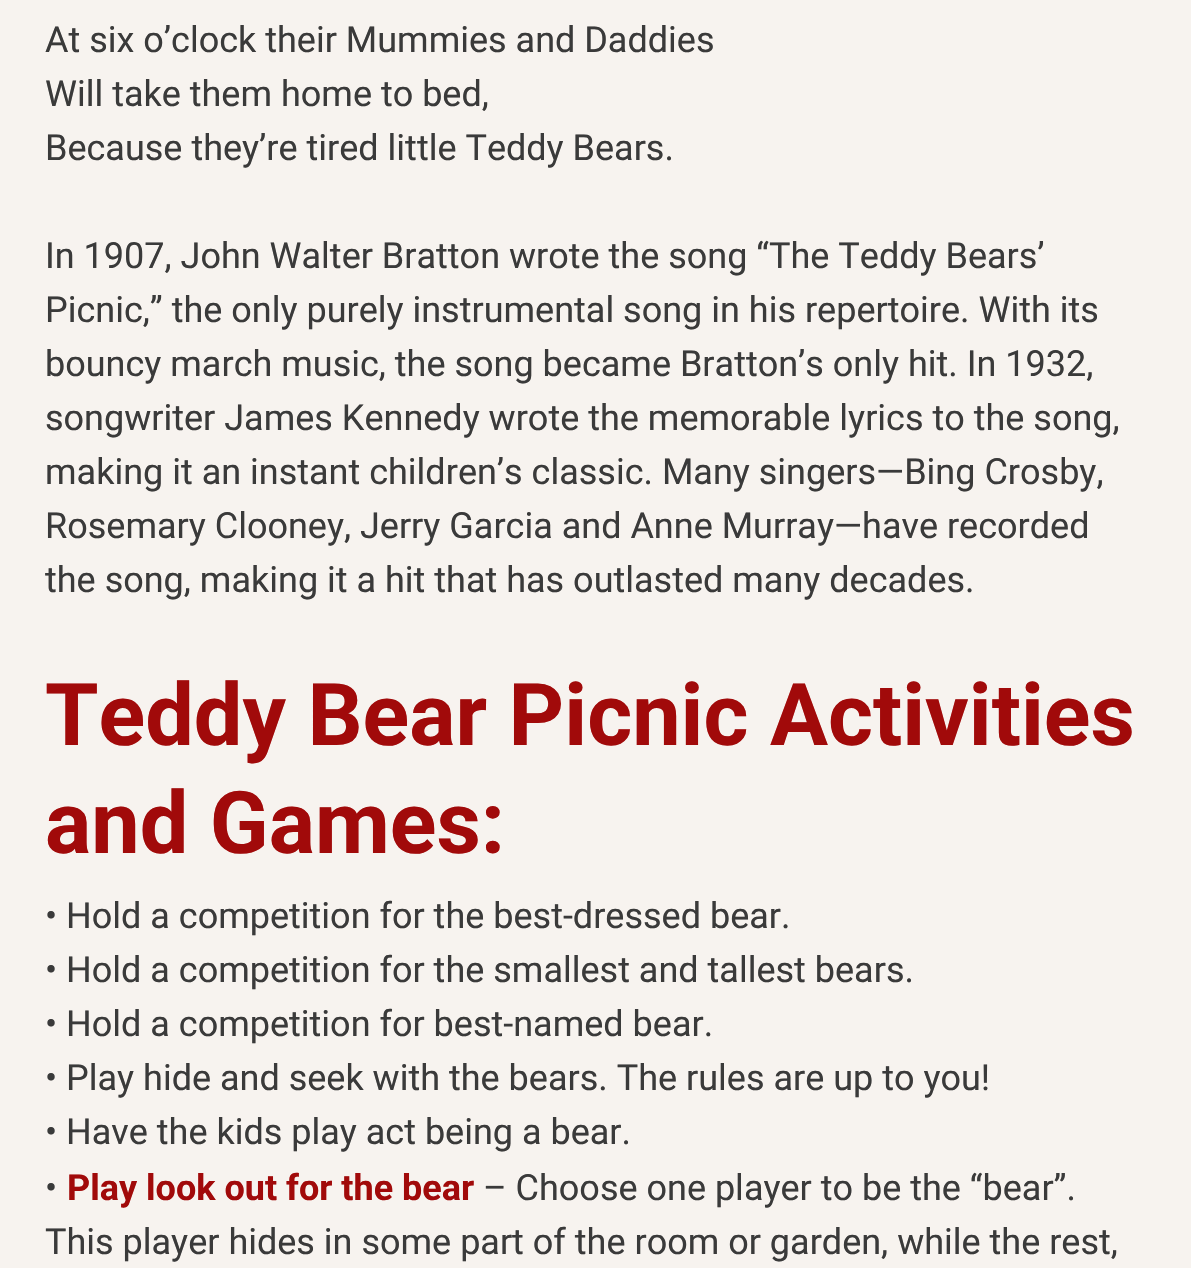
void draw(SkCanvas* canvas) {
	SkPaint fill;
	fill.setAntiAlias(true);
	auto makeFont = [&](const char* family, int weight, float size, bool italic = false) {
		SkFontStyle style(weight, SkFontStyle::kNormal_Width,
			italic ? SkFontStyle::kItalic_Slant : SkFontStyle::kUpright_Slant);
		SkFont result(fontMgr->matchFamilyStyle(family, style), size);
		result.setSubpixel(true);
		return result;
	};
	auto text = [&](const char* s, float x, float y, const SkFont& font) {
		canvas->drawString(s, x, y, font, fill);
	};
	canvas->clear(0xFFF7F3EF);
	auto font1 = makeFont("Roboto", 400, 36);
	fill.setColor(0xFF3A3A3A);
	text("At six o’clock their Mummies and Daddies", 45, 52, font1);
	text("Will take them home to bed,", 45, 106, font1);
	text("Because they’re tired little Teddy Bears.", 45, 160, font1);
	text("In 1907, John Walter Bratton wrote the song “The Teddy Bears’", 45, 268, font1);
	text("Picnic,” the only purely instrumental song in his repertoire. With its", 45, 322, font1);
	text("bouncy march music, the song became Bratton’s only hit. In 1932,", 45, 376, font1);
	text("songwriter James Kennedy wrote the memorable lyrics to the song,", 45, 430, font1);
	text("making it an instant children’s classic. Many singers—Bing Crosby,", 45, 484, font1);
	text("Rosemary Clooney, Jerry Garcia and Anne Murray—have recorded", 45, 538, font1);
	text("the song, making it a hit that has outlasted many decades.", 45, 592, font1);
	auto font2 = makeFont("Roboto", 700, 86.4f);
	fill.setColor(0xFFA10A0A);
	text("Teddy Bear Picnic Activities", 45, 745, font2);
	text("and Games:", 45, 853, font2);
	fill.setColor(0xFF3A3A3A);
	text("• Hold a competition for the best-dressed bear.", 45, 928, font1);
	text("• Hold a competition for the smallest and tallest bears.", 45, 982, font1);
	text("• Hold a competition for best-named bear.", 45, 1036, font1);
	text("• Play hide and seek with the bears. The rules are up to you!", 45, 1090, font1);
	text("• Have the kids play act being a bear.", 45, 1144, font1);
	text("•", 45, 1200, font1);
	auto font3 = makeFont("Roboto", 700, 36);
	fill.setColor(0xFFA10A0A);
	text("Play look out for the bear", 67, 1200, font3);
	fill.setColor(0xFF3A3A3A);
	text("– Choose one player to be the “bear”.", 483, 1200, font1);
	text("This player hides in some part of the room or garden, while the rest,", 45, 1254, font1);
}
